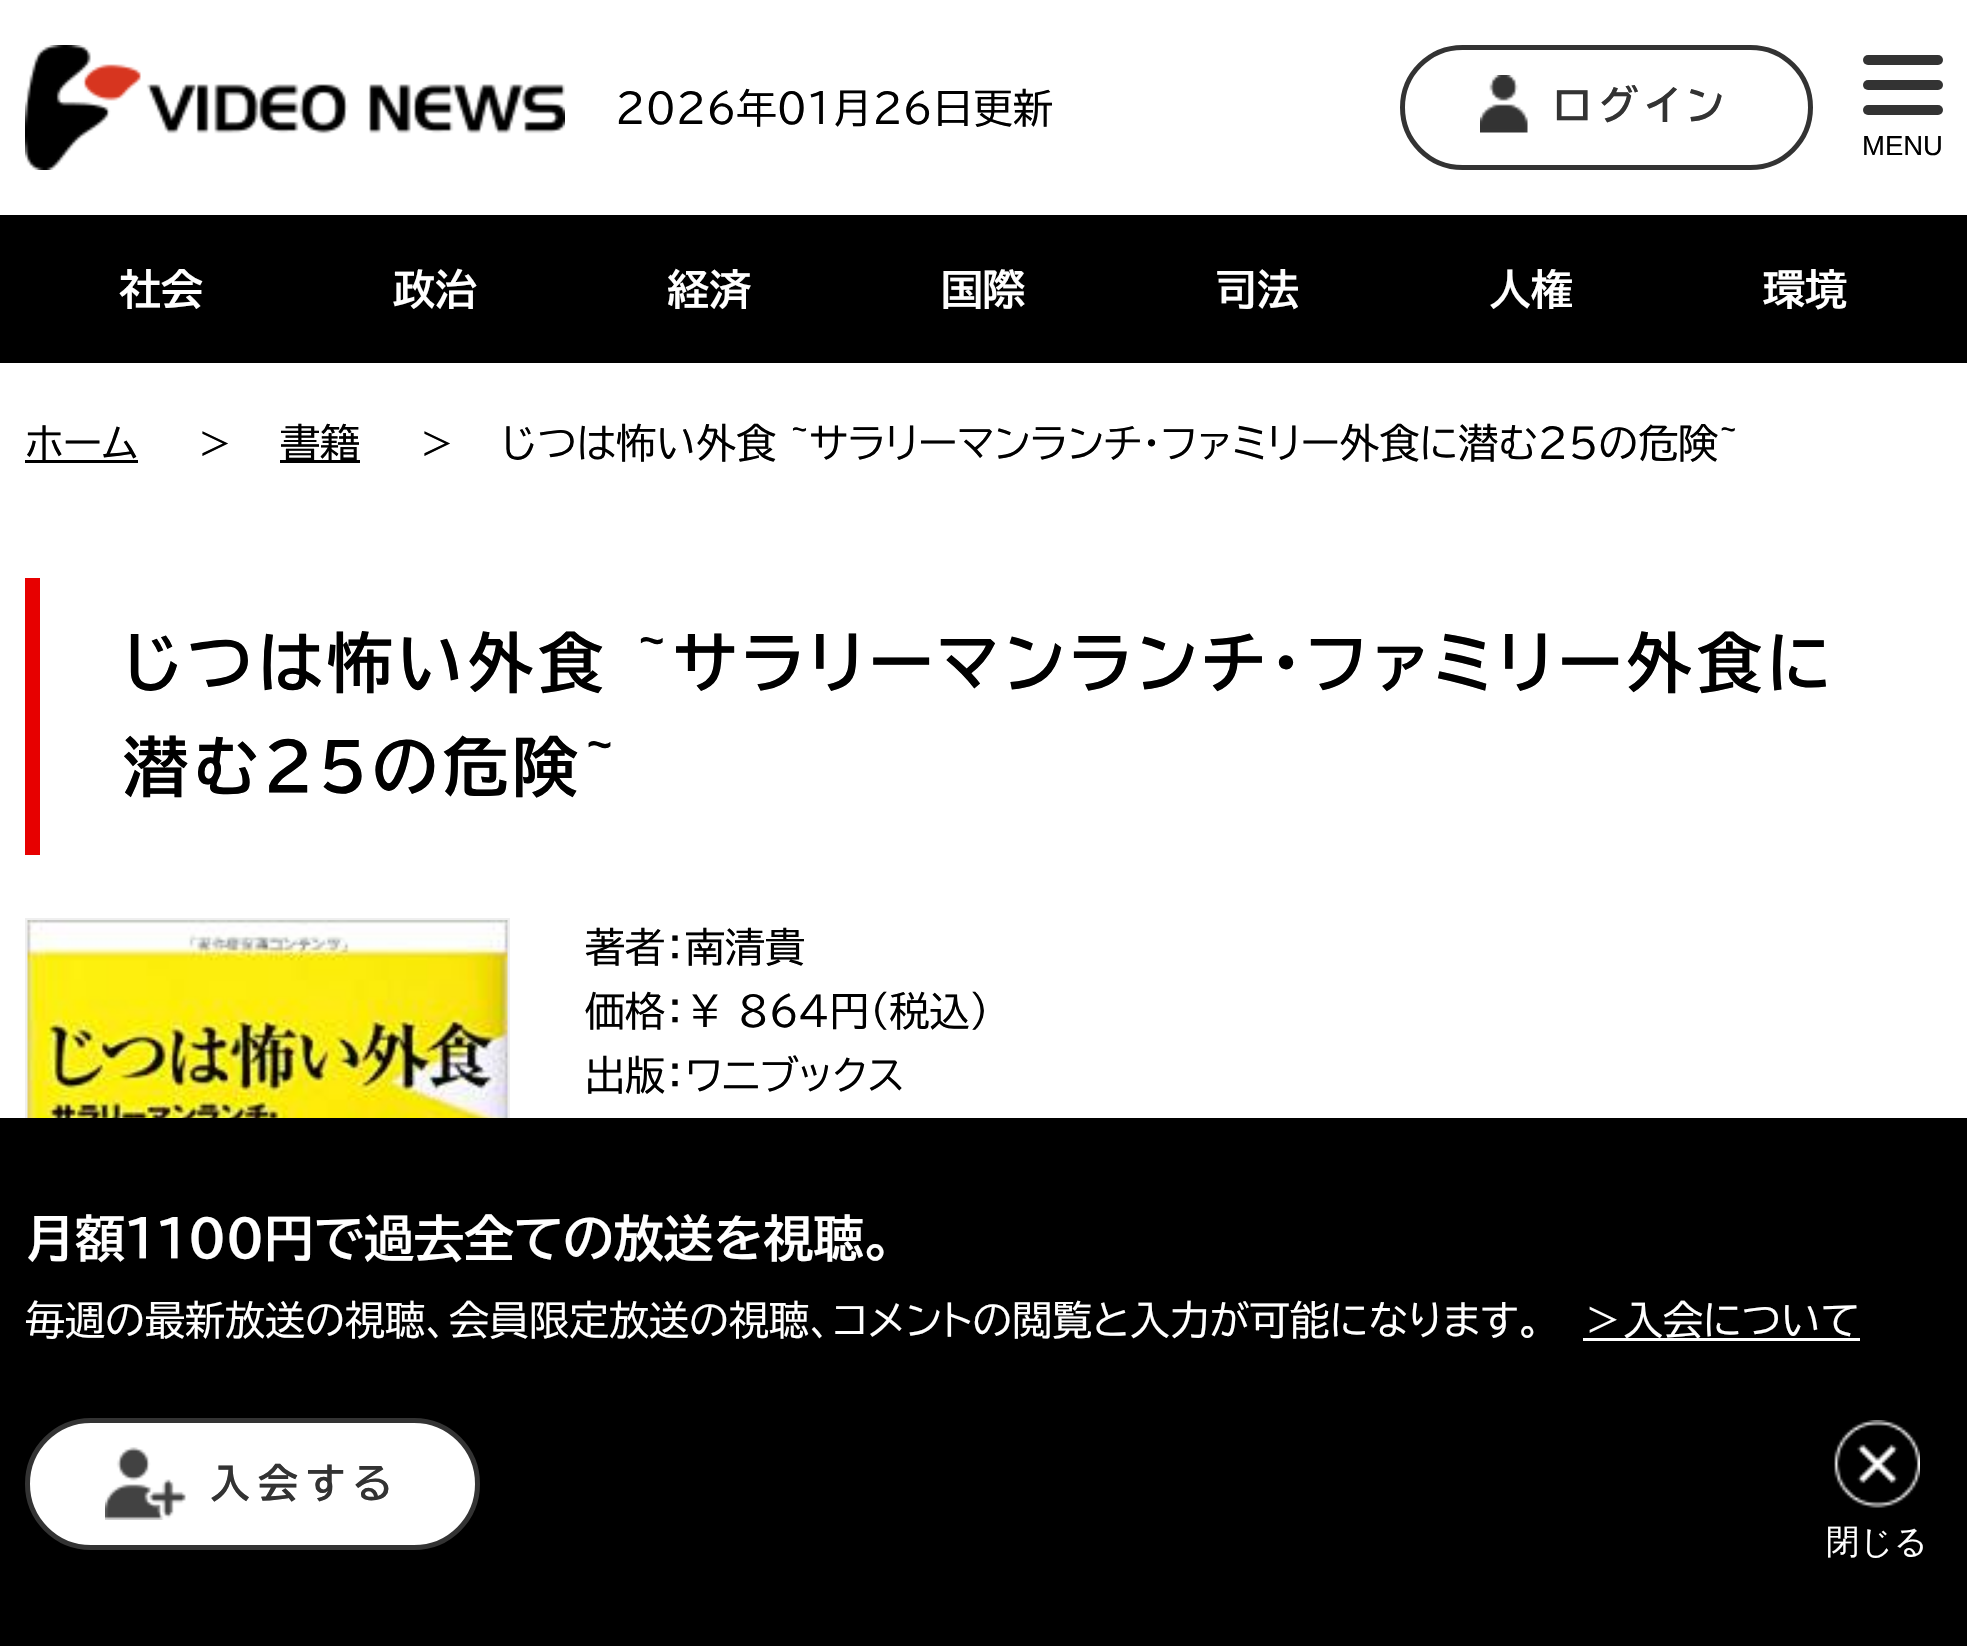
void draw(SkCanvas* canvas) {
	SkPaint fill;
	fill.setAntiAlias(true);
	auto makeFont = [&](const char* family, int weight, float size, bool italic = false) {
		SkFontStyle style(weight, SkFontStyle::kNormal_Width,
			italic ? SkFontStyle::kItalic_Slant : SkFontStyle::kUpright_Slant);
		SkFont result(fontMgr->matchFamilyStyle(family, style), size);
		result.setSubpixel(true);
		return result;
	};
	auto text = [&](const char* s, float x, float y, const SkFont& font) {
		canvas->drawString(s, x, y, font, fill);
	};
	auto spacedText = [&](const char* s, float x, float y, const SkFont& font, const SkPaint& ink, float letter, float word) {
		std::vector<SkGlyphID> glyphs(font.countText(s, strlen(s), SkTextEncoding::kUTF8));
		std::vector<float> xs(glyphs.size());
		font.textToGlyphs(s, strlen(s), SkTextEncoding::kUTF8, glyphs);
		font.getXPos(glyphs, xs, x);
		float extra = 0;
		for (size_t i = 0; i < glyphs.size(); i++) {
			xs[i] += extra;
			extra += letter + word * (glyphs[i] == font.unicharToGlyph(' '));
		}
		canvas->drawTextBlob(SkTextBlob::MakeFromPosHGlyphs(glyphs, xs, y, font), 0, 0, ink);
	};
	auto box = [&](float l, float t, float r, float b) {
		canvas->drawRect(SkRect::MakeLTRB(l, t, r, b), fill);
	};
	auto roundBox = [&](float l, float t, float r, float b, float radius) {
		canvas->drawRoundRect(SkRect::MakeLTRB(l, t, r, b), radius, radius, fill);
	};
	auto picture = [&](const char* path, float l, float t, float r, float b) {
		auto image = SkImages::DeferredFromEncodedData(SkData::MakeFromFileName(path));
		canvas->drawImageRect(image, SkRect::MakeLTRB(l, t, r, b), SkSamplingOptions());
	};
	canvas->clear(0xFFFFFFFF);
	picture("image0.png", 25, 45, 565, 170);
	fill.setStyle(SkPaint::kStroke_Style);
	fill.setStrokeWidth(5);
	fill.setColor(0xFF333333);
	canvas->drawRoundRect(SkRect::MakeLTRB(1402.5f, 47.5f, 1810.5f, 167.5f), 60, 60, fill);
	picture("image1.png", 1480, 75, 1528, 133);
	fill.setStyle(SkPaint::kFill_Style);
	roundBox(1863, 55, 1943, 65, 5);
	roundBox(1863, 80, 1943, 90, 5);
	roundBox(1863, 105, 1943, 115, 5);
	fill.setColor(0xFF000000);
	box(0, 215, 1967, 363);
	box(25, 460, 138, 463);
	box(280, 460, 360, 463);
	fill.setColor(0xFFE70000);
	box(25, 578, 40, 855);
	fill.setStyle(SkPaint::kStroke_Style);
	fill.setStrokeWidth(3);
	fill.setColor(0xFFEFEFEF);
	canvas->drawRect(SkRect::MakeLTRB(26.5f, 919.5f, 508.5f, 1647.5f), fill);
	picture("image2.png", 27, 920, 508, 1118);
	fill.setStyle(SkPaint::kFill_Style);
	fill.setColor(0xFF000000);
	box(0, 1118, 1967, 1646);
	fill.setColor(0xFFFFFFFF);
	box(1583, 1338, 1860, 1341);
	canvas->drawRoundRect(SkRect::MakeLTRB(27.5f, 1420.5f, 477.5f, 1547.5f), 63.5f, 63.5f, fill);
	fill.setStyle(SkPaint::kStroke_Style);
	fill.setStrokeWidth(5);
	fill.setColor(0xFF333333);
	canvas->drawRoundRect(SkRect::MakeLTRB(27.5f, 1420.5f, 477.5f, 1547.5f), 63.5f, 63.5f, fill);
	picture("image3.png", 105, 1447, 186, 1520);
	picture("image4.png", 1834, 1420, 1920, 1508);
	auto font1 = makeFont("BIZ UDPGothic", 400, 40);
	fill.setStyle(SkPaint::kFill_Style);
	fill.setColor(0xFF000000);
	text("2026年01月26日更新", 615, 123, font1);
	auto font2 = makeFont("BIZ UDPGothic", 700, 40);
	fill.setColor(0xFF333333);
	spacedText("ログイン", 1553, 120, font2, fill, 8, 0);
	auto font3 = makeFont("Liberation Sans", 400, 27.5f);
	fill.setColor(0xFF000000);
	text("MENU", 1862, 155, font3);
	auto font4 = makeFont("BIZ UDPGothic", 700, 42);
	fill.setColor(0xFFFFFFFF);
	text("社会", 119, 305, font4);
	text("政治", 393, 305, font4);
	text("経済", 667, 305, font4);
	text("国際", 941, 305, font4);
	text("司法", 1215, 305, font4);
	text("人権", 1489, 305, font4);
	text("環境", 1763, 305, font4);
	fill.setColor(0xFF000000);
	text("ホーム", 25, 458, font1);
	auto font5 = makeFont("BIZ UDPGothic", 400, 38);
	text("＞", 196, 458, font5);
	text("書籍", 280, 458, font1);
	text("＞", 418, 458, font5);
	text("じつは怖い外食 ~サラリーマンランチ・ファミリー外食に潜む25の危険~", 501, 458, font1);
	auto font6 = makeFont("BIZ UDPGothic", 700, 65);
	spacedText("じつは怖い外食 ~サラリーマンランチ・ファミリー外食に", 123, 687, font6, fill, 5.2f, 0);
	spacedText("潜む25の危険~", 123, 791, font6, fill, 5.2f, 0);
	text("著者：南清貴", 585, 962, font1);
	text("価格：￥ 864円（税込）", 585, 1026, font1);
	text("出版：ワニブックス", 585, 1090, font1);
	auto font7 = makeFont("BIZ UDPGothic", 700, 50);
	fill.setColor(0xFFFFFFFF);
	text("月額1100円で過去全ての放送を視聴。", 25, 1257, font7);
	text("毎週の最新放送の視聴、会員限定放送の視聴、コメントの閲覧と入力が可能になります。", 25, 1335, font1);
	text("＞入会について", 1583, 1335, font1);
	fill.setColor(0xFF333333);
	spacedText("入会する", 210, 1498, font2, fill, 8, 0);
	auto font8 = makeFont("WenQuanYi Zen Hei", 500, 33.5f);
	fill.setColor(0xFFFFFFFF);
	text("閉じる", 1826, 1553, font8);
}
